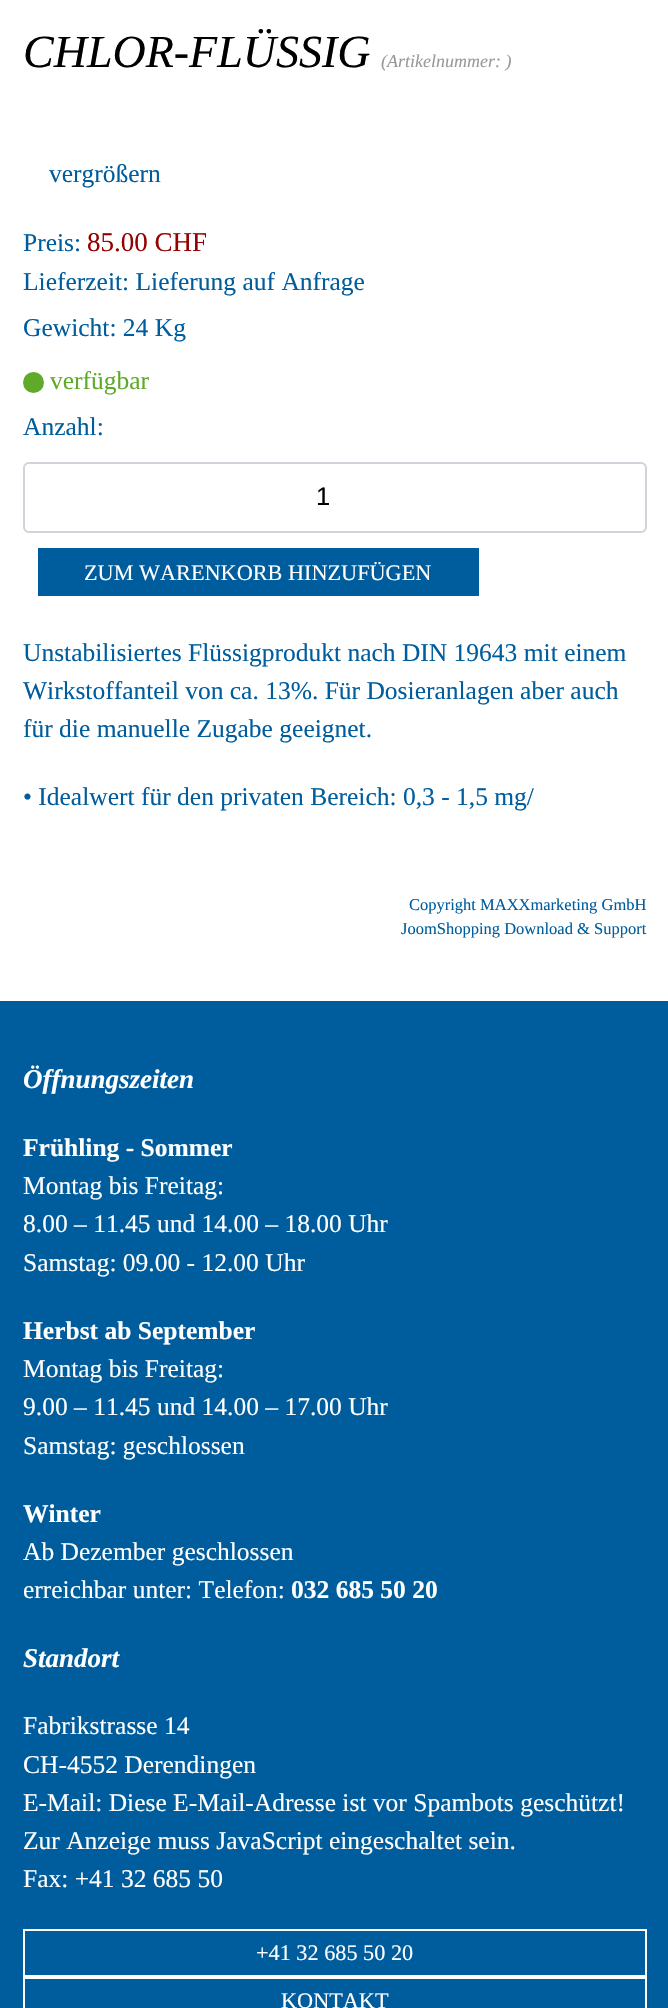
void draw(SkCanvas* canvas) {
	SkPaint fill;
	fill.setAntiAlias(true);
	auto makeFont = [&](const char* family, int weight, float size, bool italic = false) {
		SkFontStyle style(weight, SkFontStyle::kNormal_Width,
			italic ? SkFontStyle::kItalic_Slant : SkFontStyle::kUpright_Slant);
		SkFont result(fontMgr->matchFamilyStyle(family, style), size);
		result.setSubpixel(true);
		return result;
	};
	auto text = [&](const char* s, float x, float y, const SkFont& font) {
		canvas->drawString(s, x, y, font, fill);
	};
	auto box = [&](float l, float t, float r, float b) {
		canvas->drawRect(SkRect::MakeLTRB(l, t, r, b), fill);
	};
	canvas->clear(0xFFFFFFFF);
	fill.setColor(0xFF60AA2A);
	canvas->drawCircle(33.5f, 382.5f, 10.5f, fill);
	fill.setStyle(SkPaint::kStroke_Style);
	fill.setStrokeWidth(2);
	fill.setColor(0xFFCED4DA);
	canvas->drawRoundRect(SkRect::MakeLTRB(24, 463, 646, 532), 5, 5, fill);
	fill.setStyle(SkPaint::kFill_Style);
	fill.setColor(0xFF005D9D);
	box(38, 548, 479, 596);
	box(0, 1001, 668, 2008);
	fill.setStyle(SkPaint::kStroke_Style);
	fill.setColor(0xFFFFFFFF);
	canvas->drawRect(SkRect::MakeLTRB(24, 1930, 646, 1976), fill);
	canvas->drawRect(SkRect::MakeLTRB(24, 1978, 646, 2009), fill);
	auto font1 = makeFont("Liberation Serif", 400, 46, true);
	fill.setStyle(SkPaint::kFill_Style);
	fill.setColor(0xFF000000);
	text("CHLOR-FLÜSSIG", 23, 67, font1);
	auto font2 = makeFont("Liberation Serif", 400, 18, true);
	fill.setColor(0xFF999999);
	text("(Artikelnummer: )", 381, 67, font2);
	auto font3 = makeFont("Liberation Serif", 400, 25.5f);
	fill.setColor(0xFF005D9D);
	text("vergrößern", 49, 182, font3);
	text("Preis:", 23, 251, font3);
	auto font4 = makeFont("Liberation Serif", 400, 27);
	fill.setColor(0xFF950000);
	text("85.00 CHF", 87, 251, font4);
	fill.setColor(0xFF005D9D);
	text("Lieferzeit: Lieferung auf Anfrage", 23, 290, font3);
	text("Gewicht: 24 Kg", 23, 336, font3);
	fill.setColor(0xFF60AA2A);
	text("verfügbar", 50, 389, font3);
	fill.setColor(0xFF005D9D);
	text("Anzahl:", 23, 435, font3);
	auto font5 = makeFont("Liberation Sans", 400, 25.5f);
	fill.setColor(0xFF000000);
	text("1", 316, 505, font5);
	auto font6 = makeFont("Liberation Serif", 400, 22.25f);
	fill.setColor(0xFFFFFFFF);
	text("ZUM WARENKORB HINZUFÜGEN", 84, 580, font6);
	fill.setColor(0xFF005D9D);
	text("Unstabilisiertes Flüssigprodukt nach DIN 19643 mit einem", 23, 661, font3);
	text("Wirkstoffanteil von ca. 13%. Für Dosieranlagen aber auch", 23, 699, font3);
	text("für die manuelle Zugabe geeignet.", 23, 737, font3);
	text("• Idealwert für den privaten Bereich: 0,3 - 1,5 mg/", 23, 805, font3);
	auto font7 = makeFont("Liberation Serif", 400, 16.5f);
	text("Copyright MAXXmarketing GmbH", 409, 910, font7);
	text("JoomShopping Download & Support", 401, 934, font7);
	auto font8 = makeFont("Liberation Serif", 700, 27, true);
	fill.setColor(0xFFFFFFFF);
	text("Öffnungszeiten", 23, 1088, font8);
	auto font9 = makeFont("Liberation Serif", 700, 25.5f);
	text("Frühling - Sommer", 23, 1156, font9);
	text("Montag bis Freitag:", 23, 1194, font3);
	text("8.00 – 11.45 und 14.00 – 18.00 Uhr", 23, 1232, font3);
	text("Samstag: 09.00 - 12.00 Uhr", 23, 1271, font3);
	text("Herbst ab September", 23, 1339, font9);
	text("Montag bis Freitag:", 23, 1377, font3);
	text("9.00 – 11.45 und 14.00 – 17.00 Uhr", 23, 1415, font3);
	text("Samstag: geschlossen", 23, 1454, font3);
	text("Winter", 23, 1522, font9);
	text("Ab Dezember geschlossen", 23, 1560, font3);
	text("erreichbar unter: Telefon:", 23, 1598, font3);
	text("032 685 50 20", 291, 1598, font9);
	text("Standort", 23, 1667, font8);
	text("Fabrikstrasse 14", 23, 1734, font3);
	text("CH-4552 Derendingen", 23, 1773, font3);
	text("E-Mail: Diese E-Mail-Adresse ist vor Spambots geschützt!", 23, 1811, font3);
	text("Zur Anzeige muss JavaScript eingeschaltet sein.", 23, 1849, font3);
	text("Fax: +41 32 685 50", 23, 1887, font3);
	text("+41 32 685 50 20", 256, 1960, font6);
	text("KONTAKT", 281, 2008, font6);
}
